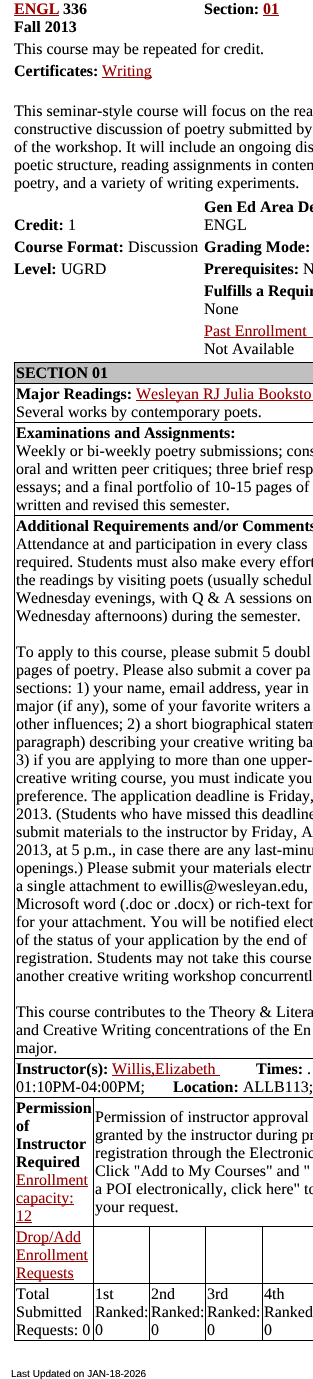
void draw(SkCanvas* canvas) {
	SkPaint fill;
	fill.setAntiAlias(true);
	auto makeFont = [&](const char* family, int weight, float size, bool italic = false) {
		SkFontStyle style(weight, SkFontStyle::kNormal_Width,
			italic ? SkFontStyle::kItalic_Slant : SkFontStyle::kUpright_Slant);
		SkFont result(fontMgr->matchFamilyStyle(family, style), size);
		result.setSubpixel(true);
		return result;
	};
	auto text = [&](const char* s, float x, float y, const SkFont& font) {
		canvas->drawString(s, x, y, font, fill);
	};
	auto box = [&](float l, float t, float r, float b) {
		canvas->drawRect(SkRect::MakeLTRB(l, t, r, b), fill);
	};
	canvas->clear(0xFFFFFFFF);
	fill.setColor(0xFF990000);
	box(14, 15, 59, 16);
	box(263, 15, 279, 16);
	box(102, 77, 152, 78);
	box(204, 337, 313, 338);
	fill.setColor(0xFF000000);
	box(14, 362, 313, 363);
	box(14, 1340, 313, 1341);
	box(14, 362, 15, 1341);
	fill.setColor(0xFFC0C0C0);
	box(15, 363, 313, 383);
	fill.setColor(0xFF000000);
	box(14, 383, 313, 384);
	fill.setColor(0xFF990000);
	box(136, 400, 313, 401);
	fill.setColor(0xFF000000);
	box(14, 422, 313, 423);
	box(14, 515, 313, 516);
	box(14, 1058, 313, 1059);
	fill.setColor(0xFF990000);
	box(112, 1075, 220, 1076);
	fill.setColor(0xFF000000);
	box(93, 1097, 313, 1098);
	box(262, 1226, 313, 1227);
	box(262, 1283, 313, 1284);
	box(262, 1283, 263, 1341);
	box(205, 1283, 263, 1284);
	box(262, 1226, 263, 1284);
	box(205, 1226, 263, 1227);
	box(205, 1283, 206, 1341);
	box(149, 1283, 206, 1284);
	box(205, 1226, 206, 1284);
	box(149, 1226, 206, 1227);
	box(149, 1283, 150, 1341);
	box(93, 1283, 150, 1284);
	box(149, 1226, 150, 1284);
	box(93, 1226, 150, 1227);
	box(93, 1283, 94, 1341);
	box(14, 1283, 94, 1284);
	box(93, 1226, 94, 1284);
	box(14, 1226, 94, 1227);
	box(93, 1097, 94, 1227);
	box(14, 1097, 94, 1098);
	fill.setColor(0xFF990000);
	box(16, 1186, 88, 1187);
	box(16, 1204, 74, 1205);
	box(16, 1222, 32, 1223);
	box(16, 1243, 81, 1244);
	box(16, 1261, 88, 1262);
	box(16, 1279, 74, 1280);
	auto font1 = makeFont("Liberation Serif", 700, 16);
	text("ENGL", 14, 14, font1);
	fill.setColor(0xFF000000);
	text("336", 63, 14, font1);
	text("Fall 2013", 14, 32, font1);
	text("Section:", 204, 14, font1);
	fill.setColor(0xFF990000);
	text("01", 263, 14, font1);
	auto font2 = makeFont("Liberation Serif", 400, 16);
	fill.setColor(0xFF000000);
	text("This course may be repeated for credit.", 14, 54, font2);
	text("Certificates:", 14, 76, font1);
	fill.setColor(0xFF990000);
	text("Writing", 102, 76, font2);
	fill.setColor(0xFF000000);
	text("This seminar-style course will focus on the rea", 14, 116, font2);
	text("constructive discussion of poetry submitted by", 14, 134, font2);
	text("of the workshop. It will include an ongoing dis", 14, 152, font2);
	text("poetic structure, reading assignments in contem", 14, 170, font2);
	text("poetry, and a variety of writing experiments.", 14, 188, font2);
	text("Credit:", 14, 230, font1);
	text("1", 68, 230, font2);
	text("Gen Ed Area De", 204, 212, font1);
	text("ENGL", 204, 230, font2);
	text("Course Format:", 14, 252, font1);
	text("Discussion", 128, 252, font2);
	text("Grading Mode:", 204, 252, font1);
	text("Level:", 14, 274, font1);
	text("UGRD", 61, 274, font2);
	text("Prerequisites:", 204, 274, font1);
	text("N", 303, 274, font2);
	text("Fulfills a Requir", 204, 296, font1);
	text("None", 204, 314, font2);
	fill.setColor(0xFF990000);
	text("Past Enrollment", 204, 336, font2);
	fill.setColor(0xFF000000);
	text("Not Available", 204, 354, font2);
	text("SECTION 01", 16, 378, font1);
	text("Major Readings:", 16, 399, font1);
	fill.setColor(0xFF990000);
	text("Wesleyan RJ Julia Booksto", 136, 399, font2);
	fill.setColor(0xFF000000);
	text("Several works by contemporary poets.", 16, 417, font2);
	text("Examinations and Assignments:", 16, 438, font1);
	text("Weekly or bi-weekly poetry submissions; cons", 16, 456, font2);
	text("oral and written peer critiques; three brief resp", 16, 474, font2);
	text("essays; and a final portfolio of 10-15 pages of", 16, 492, font2);
	text("written and revised this semester.", 16, 510, font2);
	text("Additional Requirements and/or Comments", 16, 531, font1);
	text("Attendance at and participation in every class", 16, 549, font2);
	text("required. Students must also make every effort", 16, 567, font2);
	text("the readings by visiting poets (usually schedul", 16, 585, font2);
	text("Wednesday evenings, with Q & A sessions on", 16, 603, font2);
	text("Wednesday afternoons) during the semester.", 16, 621, font2);
	text("To apply to this course, please submit 5 doubl", 16, 657, font2);
	text("pages of poetry. Please also submit a cover pa", 16, 675, font2);
	text("sections: 1) your name, email address, year in", 16, 693, font2);
	text("major (if any), some of your favorite writers a", 16, 711, font2);
	text("other influences; 2) a short biographical statem", 16, 729, font2);
	text("paragraph) describing your creative writing ba", 16, 747, font2);
	text("3) if you are applying to more than one upper-", 16, 765, font2);
	text("creative writing course, you must indicate you", 16, 783, font2);
	text("preference. The application deadline is Friday,", 16, 801, font2);
	text("2013. (Students who have missed this deadline", 16, 819, font2);
	text("submit materials to the instructor by Friday, A", 16, 837, font2);
	text("2013, at 5 p.m., in case there are any last-minu", 16, 855, font2);
	text("openings.) Please submit your materials electr", 16, 873, font2);
	text("a single attachment to ewillis@wesleyan.edu,", 16, 891, font2);
	text("Microsoft word (.doc or .docx) or rich-text for", 16, 909, font2);
	text("for your attachment. You will be notified elect", 16, 927, font2);
	text("of the status of your application by the end of", 16, 945, font2);
	text("registration. Students may not take this course", 16, 963, font2);
	text("another creative writing workshop concurrentl", 16, 981, font2);
	text("This course contributes to the Theory & Litera", 16, 1017, font2);
	text("and Creative Writing concentrations of the En", 16, 1035, font2);
	text("major.", 16, 1053, font2);
	text("Instructor(s):", 16, 1074, font1);
	fill.setColor(0xFF990000);
	text("Willis,Elizabeth", 112, 1074, font2);
	fill.setColor(0xFF000000);
	text("Times:", 256, 1074, font1);
	text(".", 307, 1074, font2);
	text("01:10PM-04:00PM;", 16, 1092, font2);
	text("Location:", 173, 1092, font1);
	text("ALLB113;", 243, 1092, font2);
	text("Permission", 16, 1113, font1);
	text("of", 16, 1131, font1);
	text("Instructor", 16, 1149, font1);
	text("Required", 16, 1167, font1);
	fill.setColor(0xFF990000);
	text("Enrollment", 16, 1185, font2);
	text("capacity:", 16, 1203, font2);
	text("12", 16, 1221, font2);
	fill.setColor(0xFF000000);
	text("Permission of instructor approval", 95, 1122, font2);
	text("granted by the instructor during pr", 95, 1140, font2);
	text("registration through the Electronic", 95, 1158, font2);
	text("Click \"Add to My Courses\" and \"", 95, 1176, font2);
	text("a POI electronically, click here\" to", 95, 1194, font2);
	text("your request.", 95, 1212, font2);
	fill.setColor(0xFF990000);
	text("Drop/Add", 16, 1242, font2);
	text("Enrollment", 16, 1260, font2);
	text("Requests", 16, 1278, font2);
	fill.setColor(0xFF000000);
	text("Total", 16, 1299, font2);
	text("Submitted", 16, 1317, font2);
	text("Requests: 0", 16, 1335, font2);
	text("1st", 95, 1299, font2);
	text("Ranked:", 95, 1317, font2);
	text("0", 95, 1335, font2);
	text("2nd", 151, 1299, font2);
	text("Ranked:", 151, 1317, font2);
	text("0", 151, 1335, font2);
	text("3rd", 207, 1299, font2);
	text("Ranked:", 207, 1317, font2);
	text("0", 207, 1335, font2);
	text("4th", 264, 1299, font2);
	text("Ranked", 264, 1317, font2);
	text("0", 264, 1335, font2);
	auto font3 = makeFont("Liberation Sans", 400, 10);
	text("Last Updated on JAN-18-2026", 11, 1377, font3);
}
